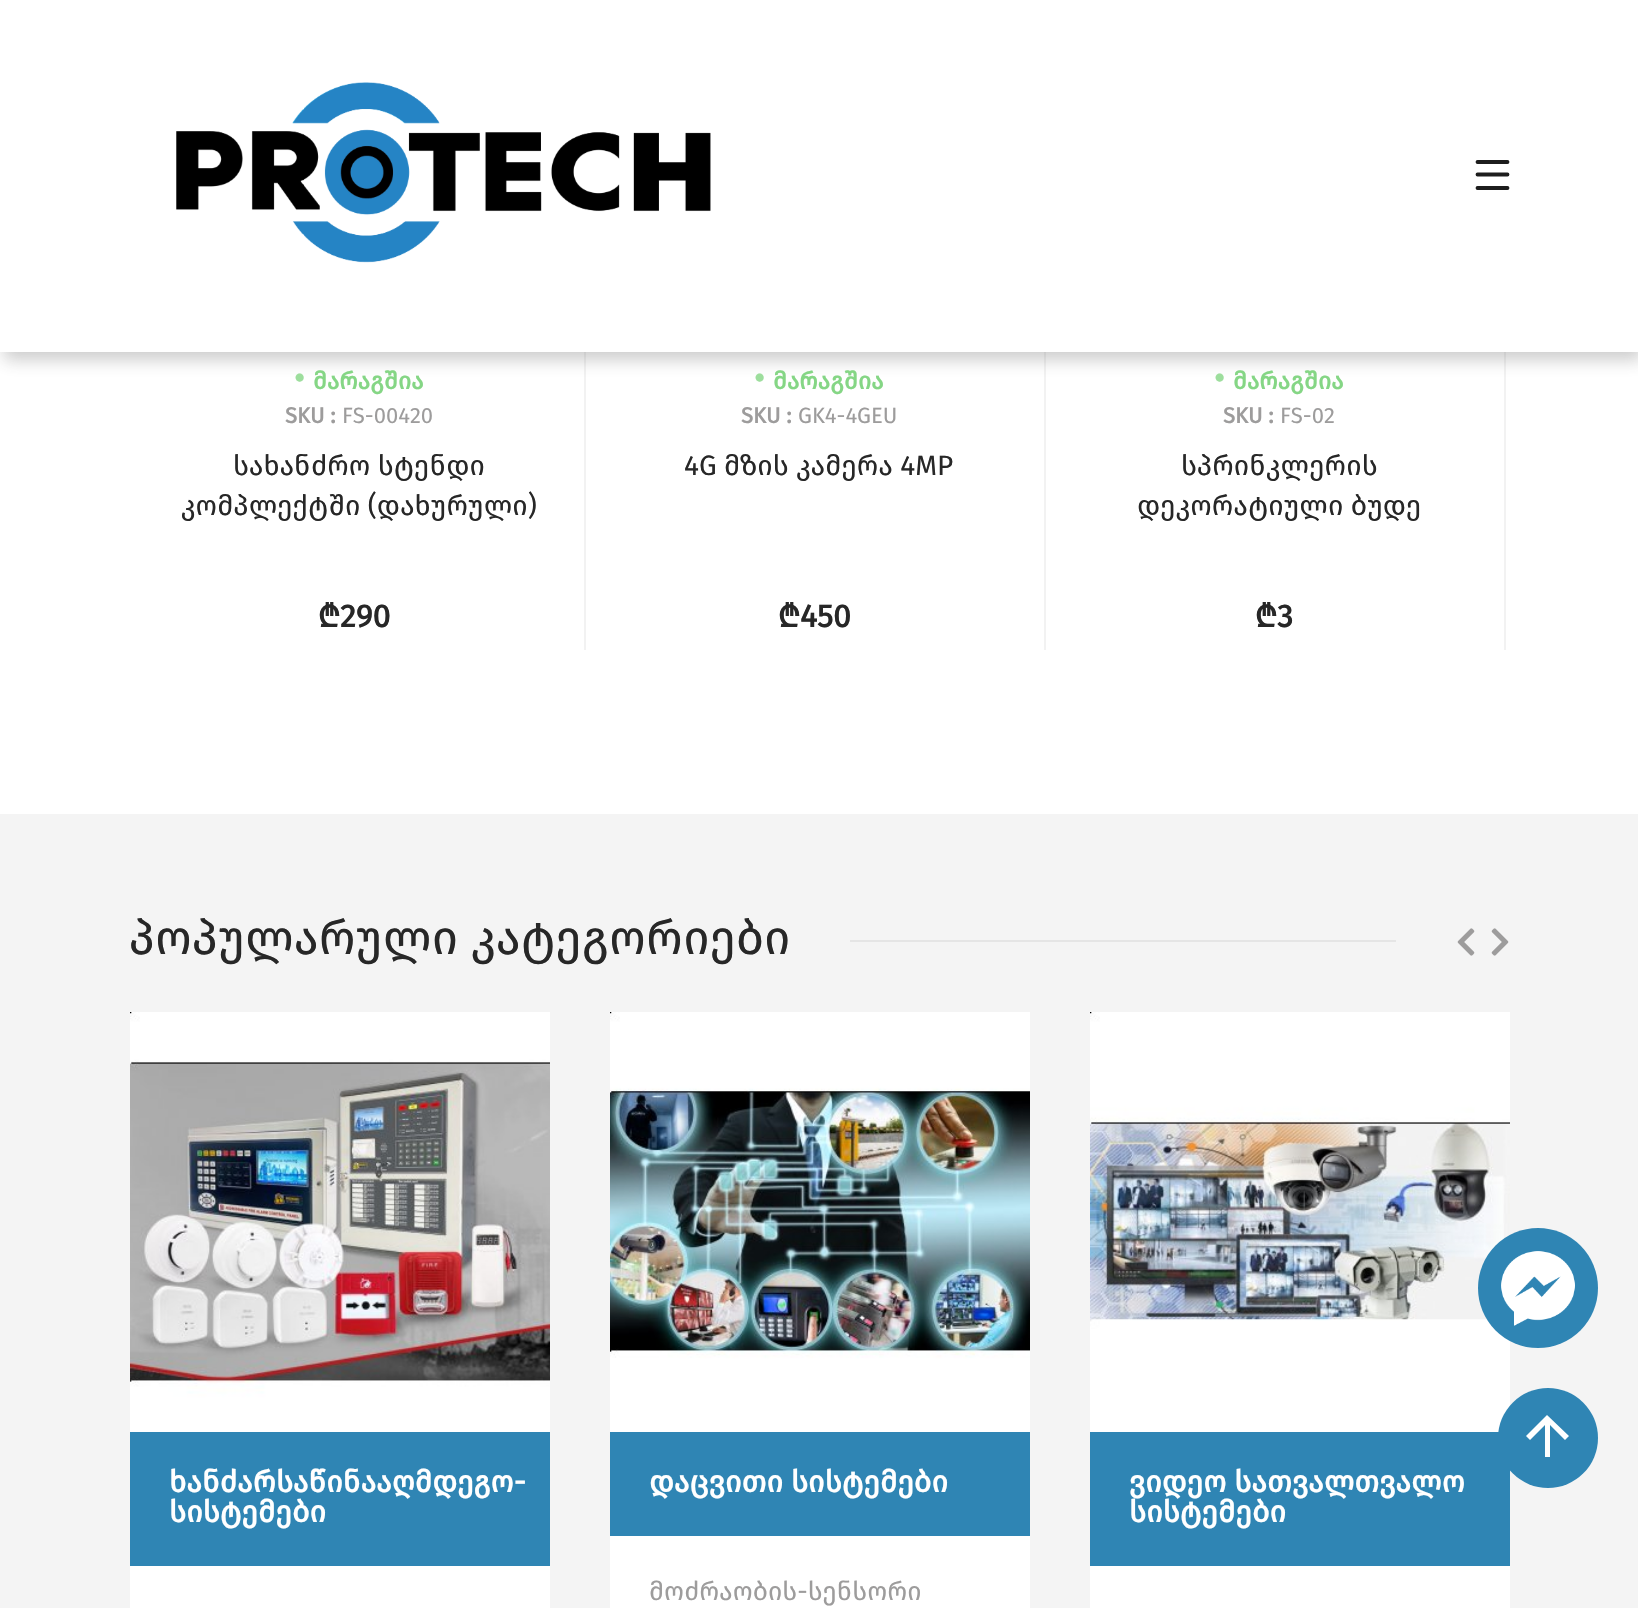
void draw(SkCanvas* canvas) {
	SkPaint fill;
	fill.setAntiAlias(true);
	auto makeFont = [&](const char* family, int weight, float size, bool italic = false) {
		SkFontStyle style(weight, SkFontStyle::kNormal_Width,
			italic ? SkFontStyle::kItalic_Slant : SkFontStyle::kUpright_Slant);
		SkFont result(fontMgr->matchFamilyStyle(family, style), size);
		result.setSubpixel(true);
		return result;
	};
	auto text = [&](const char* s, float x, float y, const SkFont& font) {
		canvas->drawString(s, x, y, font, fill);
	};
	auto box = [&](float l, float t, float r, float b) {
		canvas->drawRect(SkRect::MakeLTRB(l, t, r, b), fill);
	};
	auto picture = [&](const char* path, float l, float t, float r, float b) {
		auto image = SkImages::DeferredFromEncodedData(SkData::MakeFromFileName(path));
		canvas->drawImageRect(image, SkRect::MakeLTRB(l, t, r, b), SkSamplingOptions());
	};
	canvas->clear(0xFFFFFFFF);
	fill.setColor(0xFFF2F2F2);
	box(584, 352, 586, 650);
	box(1044, 352, 1046, 650);
	box(1504, 352, 1506, 650);
	fill.setColor(0x40333333);
	fill.setMaskFilter(SkMaskFilter::MakeBlur(kNormal_SkBlurStyle, 8));
	canvas->drawRect(SkRect::MakeLTRB(4, 8, 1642, 360), fill);
	fill.setMaskFilter(nullptr);
	fill.setColor(0xFFFFFFFF);
	box(0, 0, 1638, 352);
	picture("image0.png", 176, 82, 711, 263);
	fill.setStyle(SkPaint::kStroke_Style);
	fill.setStrokeWidth(3.8f);
	fill.setStrokeCap(SkPaint::kRound_Cap);
	fill.setColor(0xFF1D1D1D);
	canvas->drawPath(SkPathBuilder().moveTo(1477.5f, 162).lineTo(1507.5f, 162).moveTo(1477.5f, 174.5f).lineTo(1507.5f, 174.5f).moveTo(1477.5f, 188).lineTo(1507.5f, 188).detach(), fill);
	fill.setStyle(SkPaint::kFill_Style);
	fill.setColor(0xFFF4F4F4);
	box(0, 814, 1638, 1608);
	fill.setColor(0xFFE5E5E5);
	box(850, 940, 1396, 942);
	picture("image1.png", 1457, 928, 1475, 956);
	picture("image2.png", 1491, 928, 1509, 956);
	picture("image3.png", 130, 1012, 550, 1432);
	fill.setColor(0xFFFFFFFF);
	box(130, 1566, 550, 1608);
	fill.setColor(0xFF2F85B4);
	box(130, 1432, 550, 1566);
	picture("image4.png", 610, 1012, 1030, 1432);
	fill.setColor(0xFFFFFFFF);
	box(610, 1536, 1030, 1608);
	fill.setColor(0xFF2F85B4);
	box(610, 1432, 1030, 1536);
	picture("image5.png", 1090, 1012, 1510, 1432);
	fill.setColor(0xFFFFFFFF);
	box(1090, 1566, 1510, 1608);
	fill.setColor(0xFF2F85B4);
	box(1090, 1432, 1510, 1566);
	canvas->drawCircle(1538, 1288, 60, fill);
	picture("image6.png", 1501, 1251, 1575, 1326);
	canvas->drawCircle(1548, 1438, 50, fill);
	fill.setColor(0xFFFFFFFF);
	canvas->drawPath(SkPathBuilder().moveTo(1550, 1457).lineTo(1545, 1457).lineTo(1545, 1425).lineTo(1530, 1440).lineTo(1526, 1436).lineTo(1547, 1415).lineTo(1569, 1436).lineTo(1565, 1440).lineTo(1550, 1425).close().detach(), fill);
	auto font1 = makeFont("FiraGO", 700, 32);
	fill.setColor(0xFF9DDE9D);
	text("•", 294, 389, font1);
	auto font2 = makeFont("FiraGO", 700, 24);
	fill.setColor(0xFF85D685);
	text("მარაგშია", 313, 389, font2);
	auto font3 = makeFont("FiraGO", 700, 22);
	fill.setColor(0xFF9D9C9C);
	text("SKU :", 285, 423, font3);
	auto font4 = makeFont("FiraGO", 400, 22);
	text("FS-00420", 342, 423, font4);
	auto font5 = makeFont("FiraGO", 400, 28);
	fill.setColor(0xFF272727);
	text("სახანძრო სტენდი", 233, 475, font5);
	text("კომპლექტში (დახურული)", 181, 515, font5);
	text("₾290", 318, 627, font1);
	fill.setColor(0xFF9DDE9D);
	text("•", 754, 389, font1);
	fill.setColor(0xFF85D685);
	text("მარაგშია", 773, 389, font2);
	fill.setColor(0xFF9D9C9C);
	text("SKU :", 741, 423, font3);
	text("GK4-4GEU", 798, 423, font4);
	fill.setColor(0xFF272727);
	text("4G მზის კამერა 4MP", 684, 475, font5);
	text("₾450", 778, 627, font1);
	fill.setColor(0xFF9DDE9D);
	text("•", 1214, 389, font1);
	fill.setColor(0xFF85D685);
	text("მარაგშია", 1233, 389, font2);
	fill.setColor(0xFF9D9C9C);
	text("SKU :", 1223, 423, font3);
	text("FS-02", 1280, 423, font4);
	fill.setColor(0xFF272727);
	text("სპრინკლერის", 1181, 475, font5);
	text("დეკორატიული ბუდე", 1137, 515, font5);
	text("₾3", 1255, 627, font1);
	auto font6 = makeFont("FiraGO", 400, 48);
	text("პოპულარული კატეგორიები", 129, 954, font6);
	auto font7 = makeFont("FiraGO", 700, 30);
	fill.setColor(0xFFFFFFFF);
	text("ხანძარსაწინააღმდეგო-", 169, 1492, font7);
	text("სისტემები", 169, 1522, font7);
	text("დაცვითი სისტემები", 649, 1492, font7);
	auto font8 = makeFont("FiraGO", 400, 26);
	fill.setColor(0xFF9D9C9C);
	text("მოძრაობის-სენსორი", 649, 1600, font8);
	fill.setColor(0xFFFFFFFF);
	text("ვიდეო სათვალთვალო", 1129, 1492, font7);
	text("სისტემები", 1129, 1522, font7);
}
